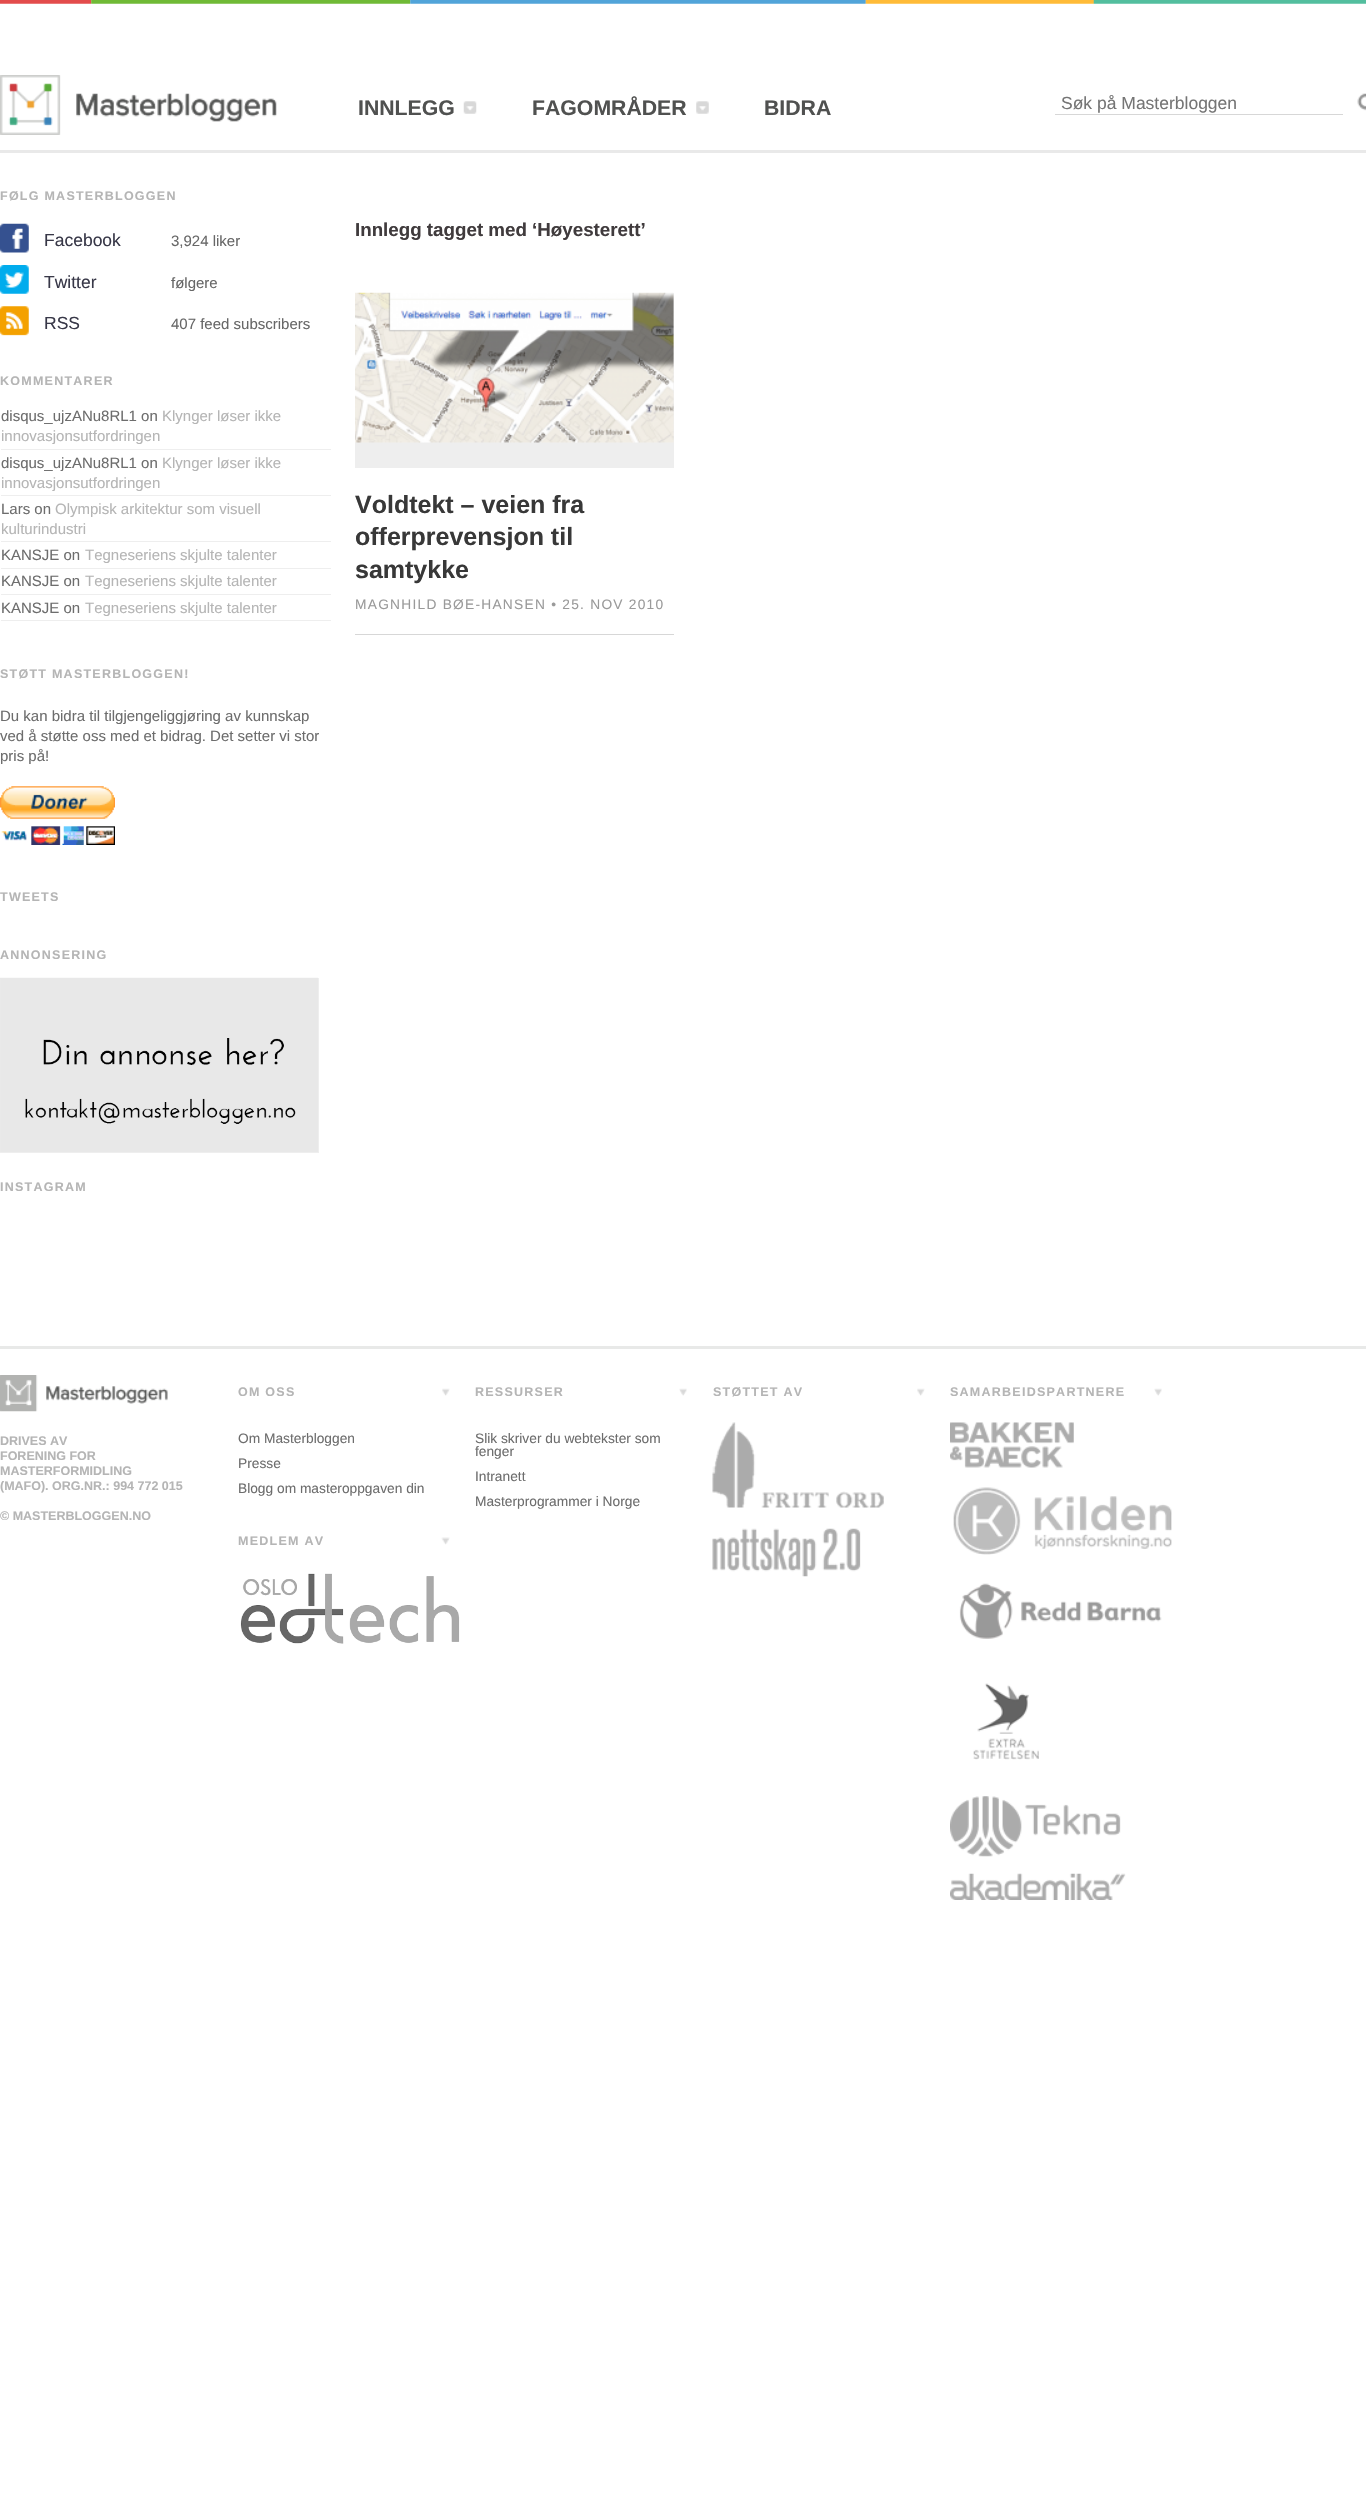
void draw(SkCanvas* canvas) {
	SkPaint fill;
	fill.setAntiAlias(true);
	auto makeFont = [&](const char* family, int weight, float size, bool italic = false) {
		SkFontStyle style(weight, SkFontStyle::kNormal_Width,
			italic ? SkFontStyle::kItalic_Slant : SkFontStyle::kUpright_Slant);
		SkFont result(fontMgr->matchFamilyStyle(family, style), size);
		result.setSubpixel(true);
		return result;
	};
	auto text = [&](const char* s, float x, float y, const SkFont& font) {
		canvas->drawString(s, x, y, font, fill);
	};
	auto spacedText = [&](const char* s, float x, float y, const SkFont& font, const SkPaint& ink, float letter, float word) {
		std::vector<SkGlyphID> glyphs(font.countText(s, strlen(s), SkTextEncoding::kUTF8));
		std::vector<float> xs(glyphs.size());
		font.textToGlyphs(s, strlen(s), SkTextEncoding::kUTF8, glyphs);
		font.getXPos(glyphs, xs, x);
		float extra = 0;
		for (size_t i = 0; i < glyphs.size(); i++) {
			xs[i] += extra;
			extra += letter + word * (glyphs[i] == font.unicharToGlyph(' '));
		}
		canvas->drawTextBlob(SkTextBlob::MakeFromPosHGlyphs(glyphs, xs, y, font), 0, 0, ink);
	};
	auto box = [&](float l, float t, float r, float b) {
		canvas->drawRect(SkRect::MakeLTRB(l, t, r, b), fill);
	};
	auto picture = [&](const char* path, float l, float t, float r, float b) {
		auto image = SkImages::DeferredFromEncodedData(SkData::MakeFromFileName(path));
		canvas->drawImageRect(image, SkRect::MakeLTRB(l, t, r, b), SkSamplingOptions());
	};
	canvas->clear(0xFFFFFFFF);
	picture("image0.png", 0, 0, 1366, 4);
	fill.setColor(0xFFE9E9E9);
	box(0, 150, 1366, 153);
	picture("image1.png", 0, 75, 277, 135);
	picture("image2.png", 463, 101, 477, 114);
	picture("image3.png", 696, 101, 709, 114);
	fill.setColor(0xFFD7D7D7);
	box(1055, 114, 1343, 115);
	picture("image4.png", 1357, 93, 1366, 111);
	picture("image5.png", 0, 223, 29, 253);
	picture("image6.png", 0, 265, 29, 294);
	picture("image7.png", 0, 306, 29, 336);
	fill.setColor(0xFFEEEEEE);
	box(1, 449, 331, 450);
	box(1, 495, 331, 496);
	box(1, 541, 331, 542);
	box(1, 568, 331, 569);
	box(1, 594, 331, 595);
	box(1, 620, 331, 621);
	picture("image8.png", 0, 786, 115, 845);
	box(0, 978, 319, 1153);
	picture("image9.png", 0, 977, 318, 1152);
	fill.setColor(0xFFD7D7D7);
	box(355, 634, 674, 635);
	fill.setColor(0xFFEEEEEE);
	box(355, 293, 674, 468);
	picture("image10.png", 355, 292, 674, 443);
	fill.setColor(0xFFE8E9E8);
	box(0, 1346, 1366, 1349);
	picture("image11.png", 442, 1388, 450, 1396);
	picture("image12.png", 441, 1537, 450, 1545);
	picture("image13.png", 240, 1573, 460, 1644);
	picture("image14.png", 679, 1388, 687, 1396);
	picture("image11.png", 917, 1388, 925, 1396);
	picture("image15.png", 712, 1422, 884, 1508);
	picture("image16.png", 712, 1528, 861, 1577);
	picture("image14.png", 1154, 1388, 1162, 1396);
	picture("image17.png", 950, 1422, 1074, 1468);
	picture("image18.png", 953, 1487, 1172, 1555);
	picture("image19.png", 959, 1583, 1162, 1639);
	picture("image20.png", 973, 1683, 1039, 1760);
	picture("image21.png", 950, 1796, 1121, 1857);
	picture("image22.png", 950, 1873, 1126, 1900);
	picture("image23.png", 0, 1375, 168, 1412);
	auto font1 = makeFont("Liberation Sans", 700, 21.25f);
	fill.setColor(0xFF505150);
	text("INNLEGG", 358, 115, font1);
	text("FAGOMRÅDER", 532, 115, font1);
	text("BIDRA", 764, 115, font1);
	auto font2 = makeFont("Liberation Sans", 400, 17.5f);
	fill.setColor(0xFF757575);
	text("Søk på Masterbloggen", 1061, 109, font2);
	auto font3 = makeFont("Liberation Sans", 700, 12.5f);
	fill.setColor(0xFFB5B5B5);
	spacedText("FØLG MASTERBLOGGEN", 0, 200, font3, fill, 1.25f, 0);
	fill.setColor(0xFF383848);
	text("Facebook", 44, 246, font2);
	auto font4 = makeFont("Liberation Sans", 400, 15);
	fill.setColor(0xFF676767);
	text("3,924 liker", 171, 246, font4);
	fill.setColor(0xFF383848);
	text("Twitter", 44, 288, font2);
	fill.setColor(0xFF676767);
	text("følgere", 171, 288, font4);
	fill.setColor(0xFF383848);
	text("RSS", 44, 329, font2);
	fill.setColor(0xFF676767);
	text("407 feed subscribers", 171, 329, font4);
	fill.setColor(0xFFB5B5B5);
	spacedText("KOMMENTARER", 0, 385, font3, fill, 1.25f, 0);
	fill.setColor(0xFF6D6D6D);
	text("disqus_ujzANu8RL1 on", 1, 421, font4);
	fill.setColor(0xFFB5B5B5);
	text("Klynger løser ikke", 162, 421, font4);
	text("innovasjonsutfordringen", 1, 441, font4);
	fill.setColor(0xFF6D6D6D);
	text("disqus_ujzANu8RL1 on", 1, 468, font4);
	fill.setColor(0xFFB5B5B5);
	text("Klynger løser ikke", 162, 468, font4);
	text("innovasjonsutfordringen", 1, 488, font4);
	fill.setColor(0xFF6D6D6D);
	text("Lars on", 1, 514, font4);
	fill.setColor(0xFFB5B5B5);
	text("Olympisk arkitektur som visuell", 55, 514, font4);
	text("kulturindustri", 1, 534, font4);
	fill.setColor(0xFF6D6D6D);
	text("KANSJE on", 1, 560, font4);
	fill.setColor(0xFFB5B5B5);
	text("Tegneseriens skjulte talenter", 85, 560, font4);
	fill.setColor(0xFF6D6D6D);
	text("KANSJE on", 1, 586, font4);
	fill.setColor(0xFFB5B5B5);
	text("Tegneseriens skjulte talenter", 85, 586, font4);
	fill.setColor(0xFF6D6D6D);
	text("KANSJE on", 1, 613, font4);
	fill.setColor(0xFFB5B5B5);
	text("Tegneseriens skjulte talenter", 85, 613, font4);
	spacedText("STØTT MASTERBLOGGEN!", 0, 678, font3, fill, 1.25f, 0);
	fill.setColor(0xFF6D6D6D);
	text("Du kan bidra til tilgjengeliggjøring av kunnskap", 0, 721, font4);
	text("ved å støtte oss med et bidrag. Det setter vi stor", 0, 741, font4);
	text("pris på!", 0, 761, font4);
	fill.setColor(0xFFB5B5B5);
	spacedText("TWEETS", 0, 901, font3, fill, 1.25f, 0);
	spacedText("ANNONSERING", 0, 959, font3, fill, 1.25f, 0);
	spacedText("INSTAGRAM", 0, 1191, font3, fill, 1.25f, 0);
	auto font5 = makeFont("Liberation Sans", 700, 18.75f);
	fill.setColor(0xFF403B3D);
	text("Innlegg tagget med ‘Høyesterett’", 355, 236, font5);
	auto font6 = makeFont("Liberation Sans", 700, 25);
	fill.setColor(0xFF383838);
	text("Voldtekt – veien fra", 355, 513, font6);
	text("offerprevensjon til", 355, 545, font6);
	text("samtykke", 355, 578, font6);
	auto font7 = makeFont("Liberation Sans", 400, 13.75f);
	fill.setColor(0xFF9A9A9A);
	spacedText("MAGNHILD BØE-HANSEN • 25. NOV 2010", 355, 609, font7, fill, 1.25f, 0);
	fill.setColor(0xFFB5B5B5);
	spacedText("OM OSS", 238, 1396, font3, fill, 1.25f, 0);
	fill.setColor(0xFF6D6D6D);
	text("Om Masterbloggen", 238, 1443, font7);
	text("Presse", 238, 1468, font7);
	text("Blogg om masteroppgaven din", 238, 1493, font7);
	fill.setColor(0xFFB5B5B5);
	spacedText("MEDLEM AV", 238, 1545, font3, fill, 1.25f, 0);
	spacedText("RESSURSER", 475, 1396, font3, fill, 1.25f, 0);
	fill.setColor(0xFF6D6D6D);
	text("Slik skriver du webtekster som", 475, 1443, font7);
	text("fenger", 475, 1456, font7);
	text("Intranett", 475, 1481, font7);
	text("Masterprogrammer i Norge", 475, 1506, font7);
	fill.setColor(0xFFB5B5B5);
	spacedText("STØTTET AV", 713, 1396, font3, fill, 1.25f, 0);
	spacedText("SAMARBEIDSPARTNERE", 950, 1396, font3, fill, 1.25f, 0);
	text("DRIVES AV", 0, 1445, font3);
	text("FORENING FOR", 0, 1460, font3);
	text("MASTERFORMIDLING", 0, 1475, font3);
	text("(MAFO). ORG.NR.: 994 772 015", 0, 1490, font3);
	text("© MASTERBLOGGEN.NO", 0, 1520, font3);
}
